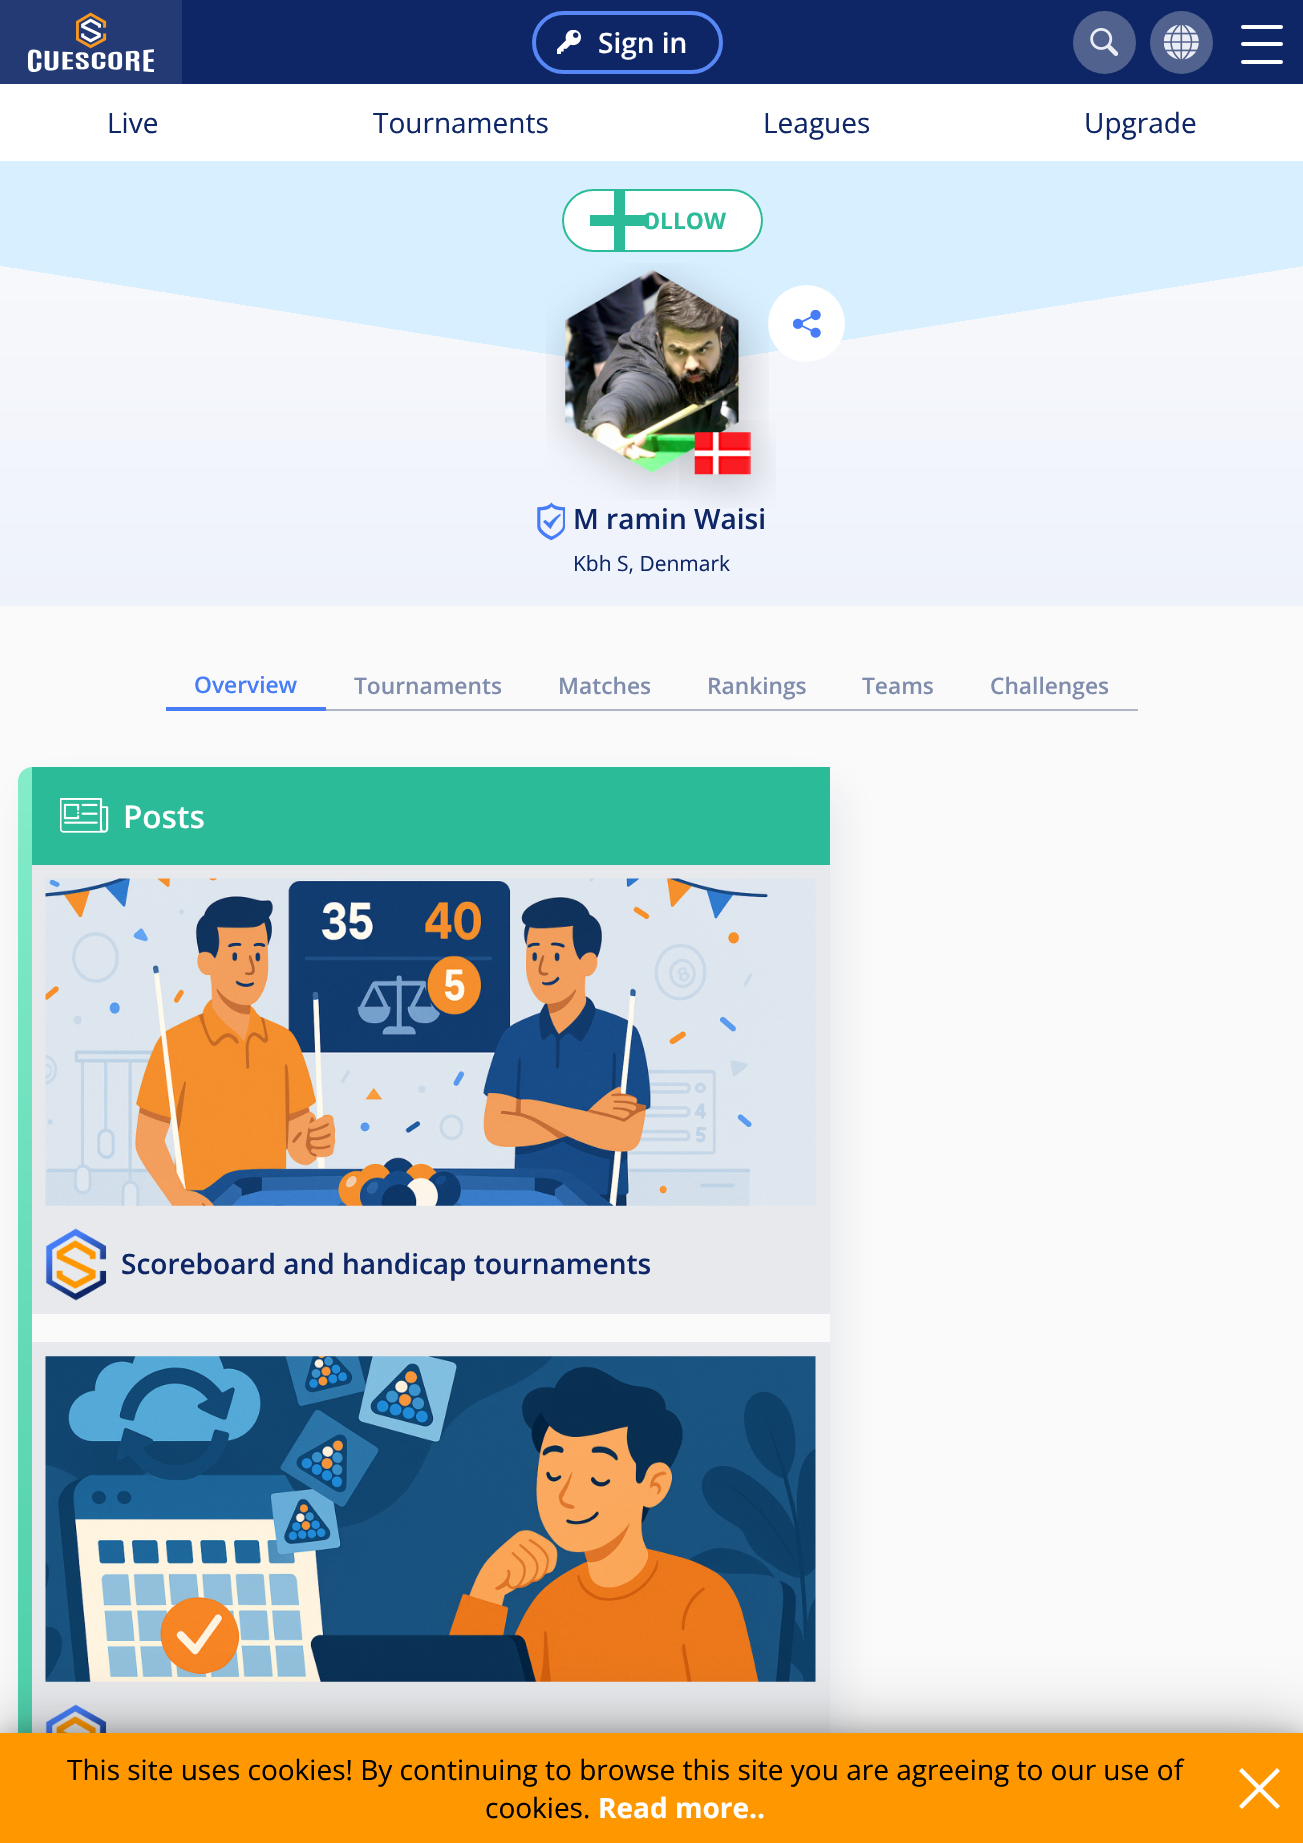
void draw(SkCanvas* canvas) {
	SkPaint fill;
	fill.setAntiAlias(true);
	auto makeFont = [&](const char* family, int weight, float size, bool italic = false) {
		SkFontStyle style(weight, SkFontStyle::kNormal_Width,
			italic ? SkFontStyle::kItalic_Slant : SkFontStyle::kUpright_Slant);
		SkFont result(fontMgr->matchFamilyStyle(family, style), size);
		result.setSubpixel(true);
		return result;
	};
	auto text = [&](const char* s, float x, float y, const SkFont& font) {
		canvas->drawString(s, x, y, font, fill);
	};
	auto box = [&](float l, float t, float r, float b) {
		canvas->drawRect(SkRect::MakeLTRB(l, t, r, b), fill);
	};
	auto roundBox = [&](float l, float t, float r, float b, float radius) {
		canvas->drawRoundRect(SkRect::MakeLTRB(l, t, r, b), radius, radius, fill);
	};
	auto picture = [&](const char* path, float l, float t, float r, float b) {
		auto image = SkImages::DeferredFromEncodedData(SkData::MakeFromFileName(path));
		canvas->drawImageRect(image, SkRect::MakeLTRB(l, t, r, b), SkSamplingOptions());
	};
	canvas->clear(0xFFFAFAFA);
	fill.setColor(0xFF0E2666);
	box(182, 0, 1303, 84);
	fill.setColor(0xFF243A74);
	box(0, 0, 182, 84);
	picture("image0.png", 28, 12, 154, 72);
	picture("image1.png", 557, 30, 581, 54);
	fill.setStyle(SkPaint::kStroke_Style);
	fill.setStrokeWidth(4);
	fill.setColor(0xFF5788F6);
	canvas->drawRoundRect(SkRect::MakeLTRB(534, 13, 721, 72), 29.5f, 29.5f, fill);
	fill.setStyle(SkPaint::kFill_Style);
	fill.setColor(0xFF51628F);
	canvas->drawCircle(1104.5f, 42.5f, 31.5f, fill);
	picture("image2.png", 1090, 28, 1118, 56);
	canvas->drawCircle(1181.5f, 42.5f, 31.5f, fill);
	picture("image3.png", 1164, 25, 1199, 60);
	fill.setColor(0xFFFFFFFF);
	roundBox(1241, 42, 1283, 46, 2);
	roundBox(1241, 25, 1283, 29, 2);
	roundBox(1241, 60, 1283, 64, 2);
	box(0, 84, 1303, 161);
	{
		const SkColor colors[] = {0xFFFAFAFB, 0xFFEEF2FB};
		const float stops[] = {0, 1};
		const SkPoint ends[] = {{652, 161}, {652, 606}};
		fill.setShader(SkGradientShader::MakeLinear(ends, colors, stops, 2, SkTileMode::kClamp));
		fill.setAlpha(255);
	}
	box(0, 266, 1303, 606);
	{
		const SkColor colors[] = {0x00D7EFFF, 0xFFD7EFFF};
		const float stops[] = {0.5f, 0.5f};
		const SkPoint ends[] = {{-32, 471}, {34, 61}};
		fill.setShader(SkGradientShader::MakeLinear(ends, colors, stops, 2, SkTileMode::kClamp));
		fill.setAlpha(255);
	}
	box(0, 161, 653, 357);
	{
		const SkColor colors[] = {0x00D7EFFF, 0xFFD7EFFF};
		const float stops[] = {0.5f, 0.5f};
		const SkPoint ends[] = {{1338, 471}, {1272, 61}};
		fill.setShader(SkGradientShader::MakeLinear(ends, colors, stops, 2, SkTileMode::kClamp));
		fill.setAlpha(255);
	}
	box(653, 161, 1303, 357);
	fill.setShader(nullptr);
	fill.setColor(0xFFFFFFFF);
	roundBox(562, 189, 763, 252, 31.5f);
	fill.setColor(0xFF2BBB98);
	canvas->drawPath(SkPathBuilder().moveTo(625, 191).lineTo(614, 191).lineTo(614, 215).lineTo(590, 215).lineTo(590, 226).lineTo(614, 226).lineTo(614, 250).lineTo(625, 250).lineTo(625, 226).lineTo(649, 226).lineTo(649, 215).lineTo(625, 215).close().detach(), fill);
	fill.setStyle(SkPaint::kStroke_Style);
	fill.setStrokeWidth(2);
	canvas->drawRoundRect(SkRect::MakeLTRB(563, 190, 762, 251), 30.5f, 30.5f, fill);
	fill.setStyle(SkPaint::kFill_Style);
	fill.setColor(0xFFFFFFFF);
	canvas->drawCircle(806.5f, 323.5f, 38.5f, fill);
	picture("image4.png", 546, 263, 769, 500);
	picture("image5.png", 679, 420, 776, 508);
	picture("image6.png", 793, 310, 821, 338);
	picture("image7.png", 537, 502, 565, 541);
	fill.setColor(0xFF467DF7);
	box(166, 707, 326, 711);
	fill.setColor(0xFFAEB5C9);
	box(326, 709, 1138, 711);
	canvas->save();
	canvas->clipPath(SkPathBuilder(SkPathFillType::kEvenOdd).moveTo(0, 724).lineTo(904, 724).lineTo(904, 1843).lineTo(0, 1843).close().moveTo(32, 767).lineTo(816, 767).cubicTo(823.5f, 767, 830, 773.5f, 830, 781).lineTo(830, 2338).cubicTo(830, 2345.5f, 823.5f, 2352, 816, 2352).lineTo(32, 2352).cubicTo(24.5f, 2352, 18, 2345.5f, 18, 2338).lineTo(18, 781).cubicTo(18, 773.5f, 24.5f, 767, 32, 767).close().detach(), true);
	fill.setColor(0x140E2666);
	fill.setMaskFilter(SkMaskFilter::MakeBlur(kNormal_SkBlurStyle, 21));
	canvas->drawRoundRect(SkRect::MakeLTRB(28, 788, 840, 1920), 14, 14, fill);
	fill.setMaskFilter(nullptr);
	canvas->restore();
	{
		const SkColor colors[] = {0xFF2BBB98, 0xFF84ECC9};
		const float stops[] = {0, 1};
		const SkPoint ends[] = {{25, 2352}, {25, 767}};
		fill.setShader(SkGradientShader::MakeLinear(ends, colors, stops, 2, SkTileMode::kClamp));
		fill.setAlpha(255);
	}
	canvas->drawPath(SkPathBuilder().moveTo(32, 767).lineTo(32, 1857).cubicTo(24.5f, 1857, 18, 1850.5f, 18, 1843).lineTo(18, 781).cubicTo(18, 773.5f, 24.5f, 767, 32, 767).close().detach(), fill);
	fill.setShader(nullptr);
	fill.setColor(0xFF2BBB98);
	box(32, 767, 830, 865);
	picture("image8.png", 60, 798, 109, 833);
	fill.setColor(0xFFE7E9EC);
	box(32, 865, 830, 1314);
	picture("image9.png", 45, 878, 816, 1206);
	picture("image10.png", 45, 1228, 107, 1301);
	box(32, 1342, 830, 1733);
	picture("image11.png", 45, 1356, 816, 1682);
	picture("image12.png", 45, 1704, 107, 1733);
	fill.setColor(0x38000000);
	fill.setMaskFilter(SkMaskFilter::MakeBlur(kNormal_SkBlurStyle, 10.5f));
	canvas->drawRect(SkRect::MakeLTRB(0, 1733, 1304, 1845), fill);
	fill.setMaskFilter(nullptr);
	fill.setColor(0x4D000000);
	fill.setMaskFilter(SkMaskFilter::MakeBlur(kNormal_SkBlurStyle, 33));
	canvas->drawRect(SkRect::MakeLTRB(0, 1733, 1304, 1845), fill);
	fill.setMaskFilter(nullptr);
	fill.setColor(0xFFFF9800);
	box(0, 1733, 1303, 1843);
	fill.setColor(0xFFFFFFFF);
	canvas->drawPath(SkPathBuilder().moveTo(1242, 1768).lineTo(1280, 1806).lineTo(1277, 1809).lineTo(1239, 1771).close().detach(), fill);
	canvas->drawPath(SkPathBuilder().moveTo(1239, 1806).lineTo(1277, 1768).lineTo(1280, 1771).lineTo(1242, 1809).close().detach(), fill);
	auto font1 = makeFont("Open Sans", 600, 28);
	text("Sign in", 598, 53, font1);
	auto font2 = makeFont("Open Sans", 400, 28);
	fill.setColor(0xFF0E2666);
	text("Live", 107, 133, font2);
	text("Tournaments", 373, 133, font2);
	text("Leagues", 763, 133, font2);
	text("Upgrade", 1084, 133, font2);
	auto font3 = makeFont("Open Sans", 700, 22.75f);
	fill.setColor(0xFF2BBB98);
	text("OLLOW", 642, 229, font3);
	fill.setColor(0xFF0E2666);
	text("M ramin Waisi", 573, 529, font1);
	auto font4 = makeFont("Open Sans", 400, 21);
	text("Kbh S, Denmark", 573, 571, font4);
	auto font5 = makeFont("Open Sans", 600, 22.75f);
	fill.setColor(0xFF467DF7);
	text("Overview", 194, 693, font5);
	fill.setColor(0xFF808CAC);
	text("Tournaments", 354, 694, font5);
	text("Matches", 558, 694, font5);
	text("Rankings", 707, 694, font5);
	text("Teams", 862, 694, font5);
	text("Challenges", 990, 694, font5);
	auto font6 = makeFont("Open Sans", 600, 31.5f);
	fill.setColor(0xFFFFFFFF);
	text("Posts", 123, 828, font6);
	fill.setColor(0xFF0E2666);
	text("Scoreboard and handicap tournaments", 121, 1274, font1);
	fill.setColor(0xFF000000);
	text("This site uses cookies! By continuing to browse this site you are agreeing to our use of", 67, 1780, font2);
	text("cookies.", 485, 1818, font2);
	auto font7 = makeFont("Open Sans", 700, 28);
	fill.setColor(0xFFFFFFFF);
	text("Read more..", 598, 1818, font7);
}
